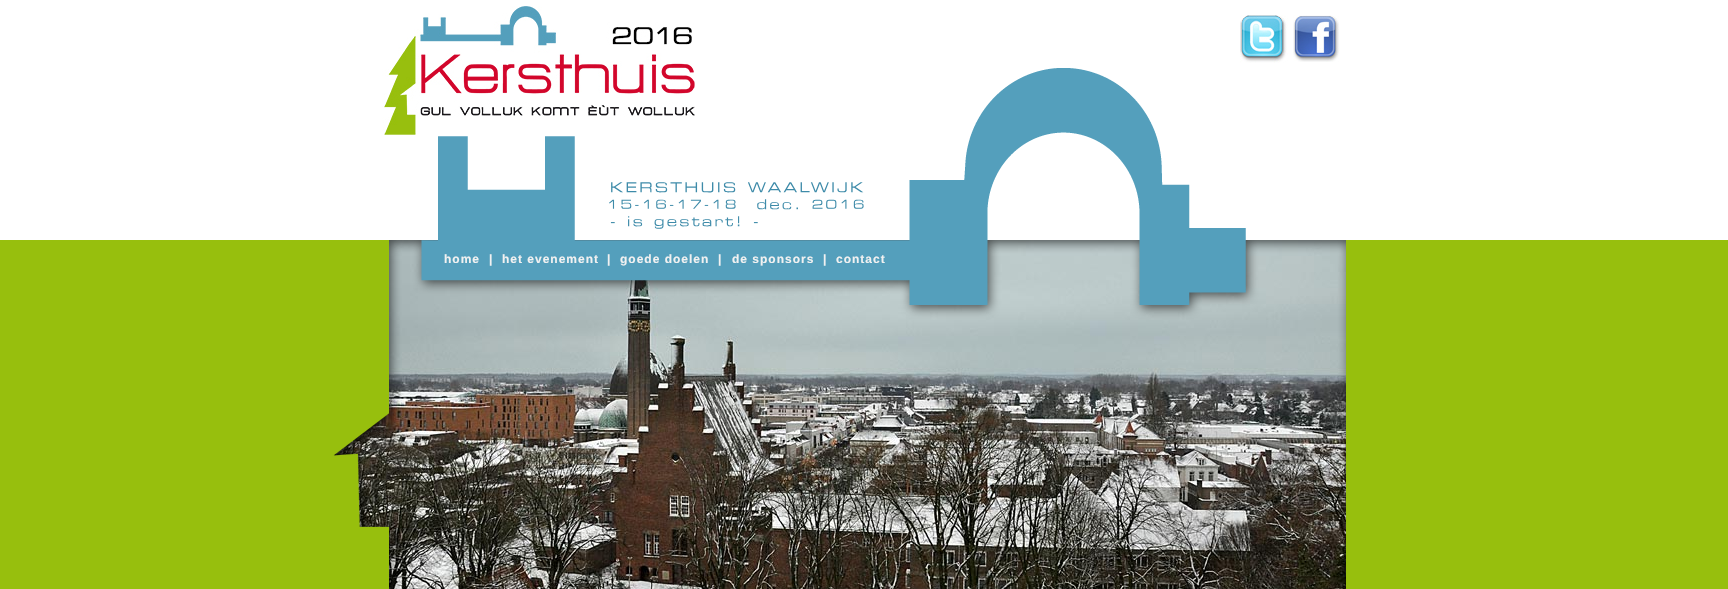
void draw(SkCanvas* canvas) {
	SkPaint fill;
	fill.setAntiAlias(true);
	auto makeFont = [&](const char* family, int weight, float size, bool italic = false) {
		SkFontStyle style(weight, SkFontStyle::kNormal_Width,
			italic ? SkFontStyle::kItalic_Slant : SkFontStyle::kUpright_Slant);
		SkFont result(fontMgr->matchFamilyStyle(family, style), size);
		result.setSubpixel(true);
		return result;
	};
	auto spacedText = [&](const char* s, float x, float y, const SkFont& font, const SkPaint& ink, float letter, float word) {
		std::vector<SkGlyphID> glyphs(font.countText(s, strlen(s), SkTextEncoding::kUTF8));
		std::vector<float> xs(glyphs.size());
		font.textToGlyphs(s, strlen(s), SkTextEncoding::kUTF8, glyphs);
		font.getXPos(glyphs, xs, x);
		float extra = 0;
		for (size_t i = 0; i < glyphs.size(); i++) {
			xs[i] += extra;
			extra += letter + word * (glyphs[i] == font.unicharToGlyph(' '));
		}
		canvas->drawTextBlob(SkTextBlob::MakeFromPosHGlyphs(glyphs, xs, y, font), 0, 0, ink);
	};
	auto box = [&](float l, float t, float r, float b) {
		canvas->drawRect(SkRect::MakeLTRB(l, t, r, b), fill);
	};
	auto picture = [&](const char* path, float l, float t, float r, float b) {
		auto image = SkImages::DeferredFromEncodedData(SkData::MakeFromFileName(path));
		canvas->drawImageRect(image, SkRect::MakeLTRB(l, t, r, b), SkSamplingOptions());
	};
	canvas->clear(0xFFFFFFFF);
	fill.setColor(0xFF97BF0D);
	box(0, 240, 1728, 589);
	picture("image0.png", 333, 240, 1346, 589);
	picture("image4.png", 322, 68, 1346, 589);
	picture("image1.png", 382, 6, 695, 135);
	picture("image2.png", 1240, 15, 1288, 63);
	picture("image3.png", 1293, 15, 1340, 62);
	picture("image5.png", 611, 182, 736, 193);
	picture("image6.png", 748, 182, 864, 193);
	picture("image7.png", 609, 199, 736, 209);
	picture("image8.png", 757, 199, 798, 210);
	picture("image9.png", 812, 199, 864, 209);
	picture("image10.png", 610, 222, 615, 224);
	picture("image11.png", 628, 216, 643, 227);
	picture("image12.png", 654, 216, 740, 229);
	picture("image10.png", 753, 222, 758, 224);
	auto font1 = makeFont("Liberation Sans", 700, 12);
	fill.setColor(0xFFF1F1F1);
	spacedText("home", 444, 263, font1, fill, 1, 0);
	spacedText("|", 489, 263, font1, fill, 1, 0);
	spacedText("het evenement", 502, 263, font1, fill, 1, 0);
	spacedText("|", 607, 263, font1, fill, 1, 0);
	spacedText("goede doelen", 620, 263, font1, fill, 1, 0);
	spacedText("|", 718, 263, font1, fill, 1, 0);
	spacedText("de sponsors", 732, 263, font1, fill, 1, 0);
	spacedText("|", 823, 263, font1, fill, 1, 0);
	spacedText("contact", 836, 263, font1, fill, 1, 0);
}
